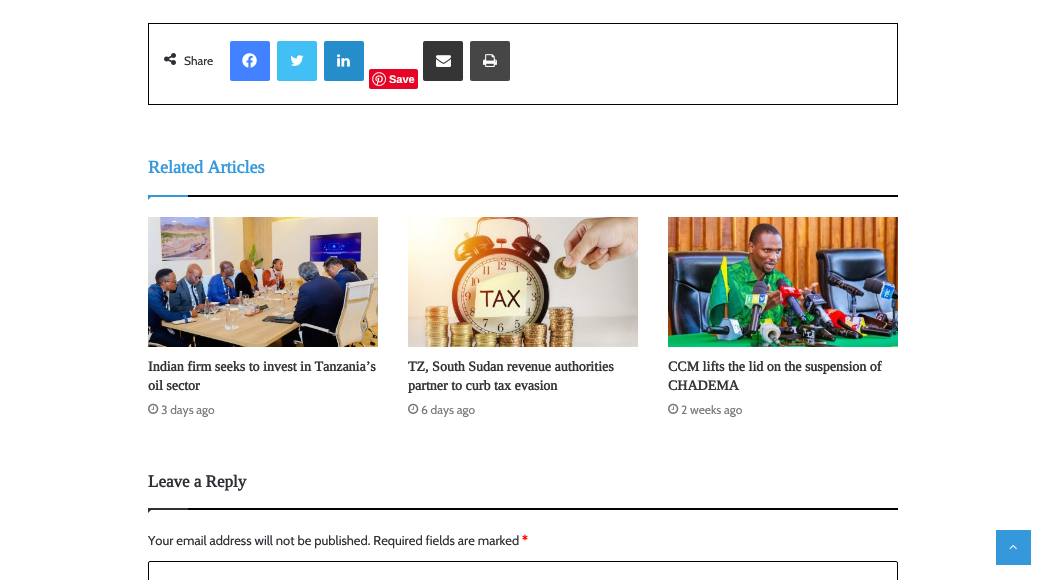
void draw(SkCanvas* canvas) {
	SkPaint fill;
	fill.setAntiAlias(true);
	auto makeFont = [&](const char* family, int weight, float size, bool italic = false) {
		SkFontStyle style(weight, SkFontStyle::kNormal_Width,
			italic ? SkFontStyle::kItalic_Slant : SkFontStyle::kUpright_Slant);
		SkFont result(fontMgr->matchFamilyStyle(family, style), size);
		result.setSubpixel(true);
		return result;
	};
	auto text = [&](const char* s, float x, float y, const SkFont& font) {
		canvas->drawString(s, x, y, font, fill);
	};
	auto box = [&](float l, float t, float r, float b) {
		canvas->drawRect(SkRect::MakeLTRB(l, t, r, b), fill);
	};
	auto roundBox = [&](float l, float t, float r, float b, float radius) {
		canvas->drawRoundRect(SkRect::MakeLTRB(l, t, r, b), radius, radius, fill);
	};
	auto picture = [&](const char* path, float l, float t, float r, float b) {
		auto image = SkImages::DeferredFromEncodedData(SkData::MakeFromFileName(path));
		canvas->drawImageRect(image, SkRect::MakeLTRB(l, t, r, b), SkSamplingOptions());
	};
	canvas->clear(0xFFFFFFFF);
	fill.setStyle(SkPaint::kStroke_Style);
	fill.setStrokeWidth(1);
	fill.setColor(0xFF030303);
	canvas->drawRect(SkRect::MakeLTRB(148.5f, 23.5f, 897.5f, 104.5f), fill);
	picture("image0.png", 164, 53, 176, 65);
	fill.setStyle(SkPaint::kFill_Style);
	fill.setColor(0xFF4281FF);
	roundBox(230, 41, 270, 81, 2);
	picture("image1.png", 242, 53, 257, 68);
	fill.setColor(0xFF42C0F5);
	roundBox(277, 41, 317, 81, 2);
	picture("image2.png", 290, 55, 304, 66);
	fill.setColor(0xFF258DC9);
	roundBox(324, 41, 364, 81, 2);
	picture("image3.png", 337, 54, 350, 67);
	fill.setColor(0xFF353535);
	roundBox(423, 41, 463, 81, 2);
	picture("image4.png", 436, 55, 451, 67);
	fill.setColor(0xFF464646);
	roundBox(470, 41, 510, 81, 2);
	picture("image5.png", 483, 54, 497, 67);
	fill.setColor(0xFFE60325);
	roundBox(369, 69, 418, 89, 2);
	picture("image6.png", 372, 72, 386, 86);
	fill.setColor(0xFF030303);
	box(188, 195, 898, 197);
	fill.setColor(0xFF3699DB);
	canvas->drawPath(SkPathBuilder().moveTo(148, 195).lineTo(153, 195).lineTo(148, 200).close().detach(), fill);
	box(148, 195, 188, 197);
	picture("image7.png", 148, 217, 378, 347);
	picture("image8.png", 148, 403, 159, 414);
	picture("image9.png", 408, 217, 638, 347);
	picture("image8.png", 408, 403, 419, 414);
	picture("image10.png", 668, 217, 898, 347);
	picture("image8.png", 668, 403, 679, 414);
	fill.setColor(0xFF030303);
	box(188, 508, 898, 510);
	fill.setColor(0xFF2E3136);
	canvas->drawPath(SkPathBuilder().moveTo(148, 508).lineTo(153, 508).lineTo(148, 513).close().detach(), fill);
	box(148, 508, 188, 510);
	fill.setStyle(SkPaint::kStroke_Style);
	fill.setColor(0xFF030303);
	canvas->drawRoundRect(SkRect::MakeLTRB(148.5f, 561.5f, 897.5f, 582.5f), 1.5f, 1.5f, fill);
	fill.setStyle(SkPaint::kFill_Style);
	fill.setColor(0xFF3498DB);
	box(996, 530, 1031, 565);
	picture("image11.png", 1009, 544, 1017, 550);
	auto font1 = makeFont("Cabin", 400, 12);
	fill.setColor(0xFF2E3136);
	text("Share", 184, 65, font1);
	auto font2 = makeFont("Liberation Sans", 700, 11);
	fill.setColor(0xFFFFFFFF);
	text("Save", 389, 83, font2);
	auto font3 = makeFont("Tinos", 700, 18);
	fill.setColor(0xFF3699DB);
	text("Related Articles", 148, 173, font3);
	auto font4 = makeFont("Tinos", 700, 14);
	fill.setColor(0xFF353535);
	text("Indian firm seeks to invest in Tanzania’s", 148, 371, font4);
	text("oil sector", 148, 390, font4);
	fill.setColor(0xFF777777);
	text("3 days ago", 161, 414, font1);
	fill.setColor(0xFF353535);
	text("TZ, South Sudan revenue authorities", 408, 371, font4);
	text("partner to curb tax evasion", 408, 390, font4);
	fill.setColor(0xFF777777);
	text("6 days ago", 421, 414, font1);
	fill.setColor(0xFF353535);
	text("CCM lifts the lid on the suspension of", 668, 371, font4);
	text("CHADEMA", 668, 390, font4);
	fill.setColor(0xFF777777);
	text("2 weeks ago", 681, 414, font1);
	auto font5 = makeFont("Tinos", 700, 17);
	fill.setColor(0xFF2E3136);
	text("Leave a Reply", 148, 487, font5);
	auto font6 = makeFont("Cabin", 400, 13);
	text("Your email address will not be published. Required fields are marked", 148, 545, font6);
	auto font7 = makeFont("Cabin", 700, 13);
	fill.setColor(0xFFFF0303);
	text("*", 522, 545, font7);
}
